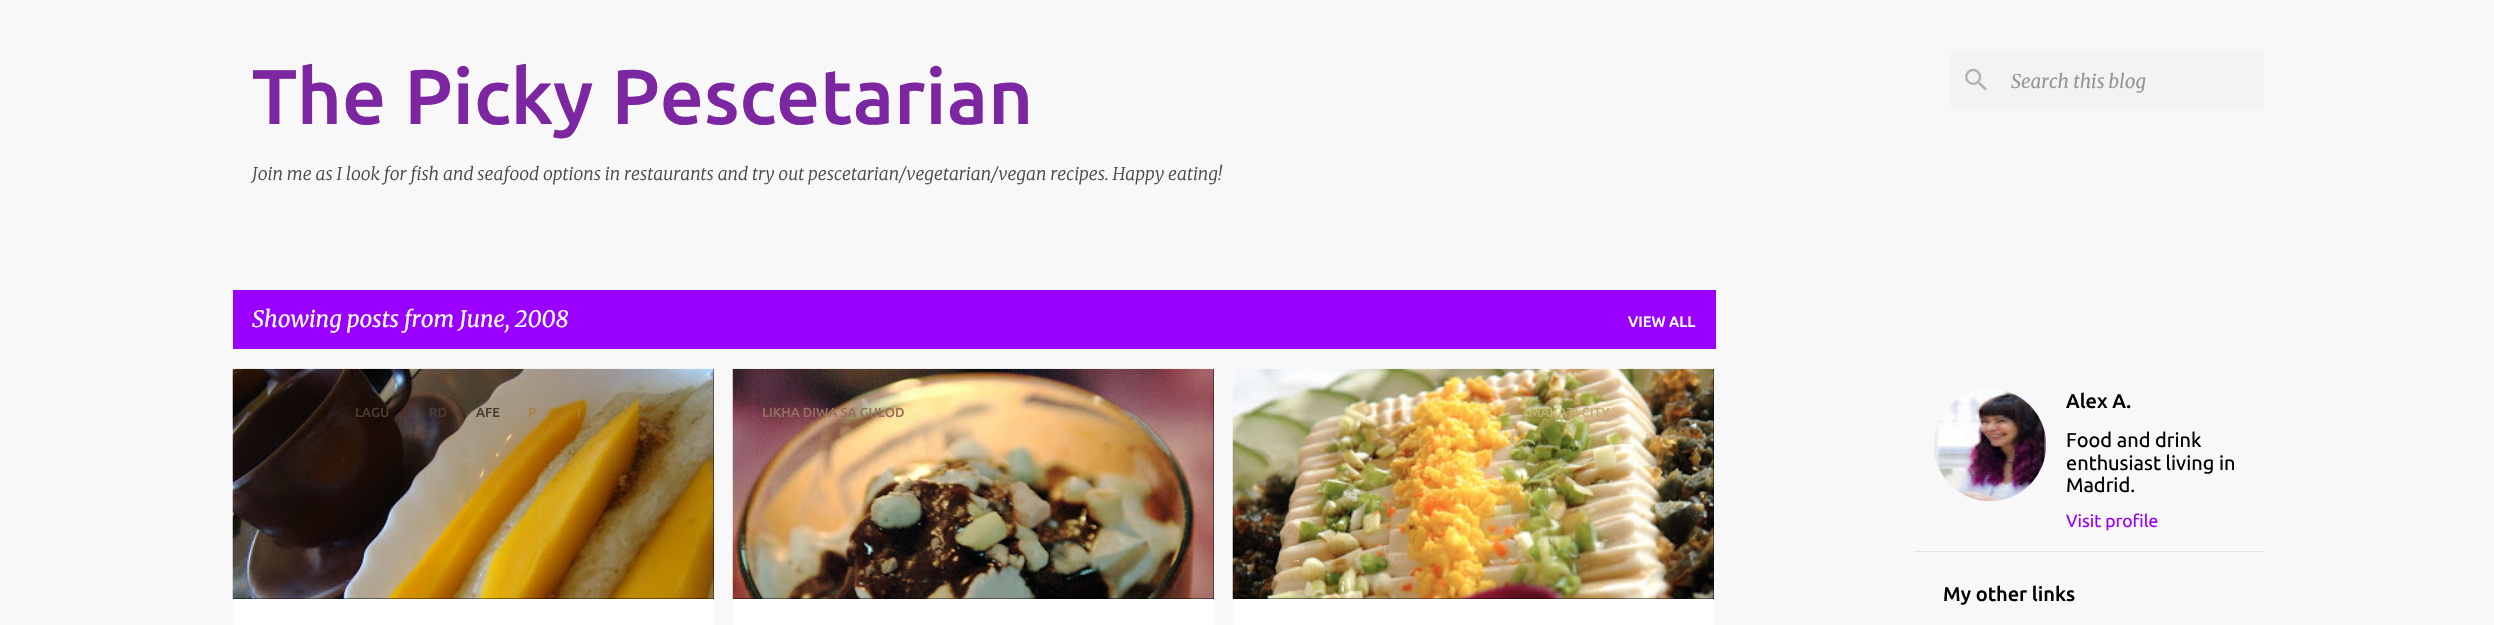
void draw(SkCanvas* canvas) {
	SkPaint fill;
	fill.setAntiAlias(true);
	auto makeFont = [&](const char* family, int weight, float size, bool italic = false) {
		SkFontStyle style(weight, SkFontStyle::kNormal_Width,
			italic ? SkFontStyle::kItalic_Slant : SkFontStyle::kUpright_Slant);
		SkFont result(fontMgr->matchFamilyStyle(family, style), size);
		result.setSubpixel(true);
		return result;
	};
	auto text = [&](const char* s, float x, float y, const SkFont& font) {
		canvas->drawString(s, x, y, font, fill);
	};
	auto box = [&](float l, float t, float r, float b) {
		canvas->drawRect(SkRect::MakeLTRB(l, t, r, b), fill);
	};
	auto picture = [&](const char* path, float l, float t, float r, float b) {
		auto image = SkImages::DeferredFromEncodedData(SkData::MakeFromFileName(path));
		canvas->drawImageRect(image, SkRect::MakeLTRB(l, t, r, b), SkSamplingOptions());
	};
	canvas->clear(0xFFF8F8F8);
	fill.setColor(0xFFF3F3F3);
	box(1951, 50, 2264, 110);
	picture("image0.png", 1965, 68, 1987, 91);
	fill.setColor(0xFF9900FF);
	box(233, 290, 1716, 349);
	fill.setColor(0xFFFFFFFF);
	box(233, 599, 714, 625);
	fill.setColor(0xFF000000);
	box(233, 369, 714, 599);
	picture("image1.png", 232, 368, 714, 599);
	fill.setColor(0xFFFFFFFF);
	box(733, 599, 1214, 625);
	fill.setColor(0xFF000000);
	box(733, 369, 1214, 599);
	picture("image2.png", 732, 368, 1214, 599);
	fill.setColor(0xFFFFFFFF);
	box(1233, 599, 1714, 625);
	fill.setColor(0xFF000000);
	box(1233, 369, 1714, 599);
	picture("image3.png", 1232, 368, 1714, 599);
	picture("image4.png", 1934, 389, 2047, 501);
	fill.setColor(0xFFE3E3E3);
	box(1914, 551, 2264, 552);
	auto font1 = makeFont("Ubuntu", 500, 77.5f);
	fill.setColor(0xFF7C27A1);
	text("The Picky Pescetarian", 252, 124, font1);
	auto font2 = makeFont("Merriweather", 300, 17.5f, true);
	fill.setColor(0xFF494949);
	text("Join me as I look for fish and seafood options in restaurants and try out pescetarian/vegetarian/vegan recipes. Happy eating!", 252, 180, font2);
	auto font3 = makeFont("Merriweather", 400, 18.75f, true);
	fill.setColor(0xFF979797);
	text("Search this blog", 2011, 88, font3);
	auto font4 = makeFont("Merriweather", 400, 22.5f, true);
	fill.setColor(0xFFFFFFFF);
	text("Showing posts from June, 2008", 252, 327, font4);
	auto font5 = makeFont("Ubuntu", 500, 15);
	text("VIEW ALL", 1628, 327, font5);
	auto font6 = makeFont("Ubuntu", 500, 13.1f);
	fill.setColor(0xFF4A3C33);
	text("LAGU", 355, 417, font6);
	text("RD", 429, 417, font6);
	text("AFE", 476, 417, font6);
	fill.setColor(0xFFA5813D);
	text("P", 528, 417, font6);
	text("I", 577, 417, font6);
	fill.setColor(0xFF966F5D);
	text("LIKHA DIWA SA GULOD", 762, 417, font6);
	fill.setColor(0xFFBFB075);
	text("MAKATI CITY", 1529, 417, font6);
	auto font7 = makeFont("Ubuntu", 500, 20);
	fill.setColor(0xFF000000);
	text("Alex A.", 2066, 408, font7);
	auto font8 = makeFont("Ubuntu", 400, 20);
	text("Food and drink", 2066, 447, font8);
	text("enthusiast living in", 2066, 470, font8);
	text("Madrid.", 2066, 492, font8);
	auto font9 = makeFont("Ubuntu", 400, 17.5f);
	fill.setColor(0xFF9900FF);
	text("Visit profile", 2066, 527, font9);
	fill.setColor(0xFF000000);
	text("My other links", 1943, 601, font7);
}
